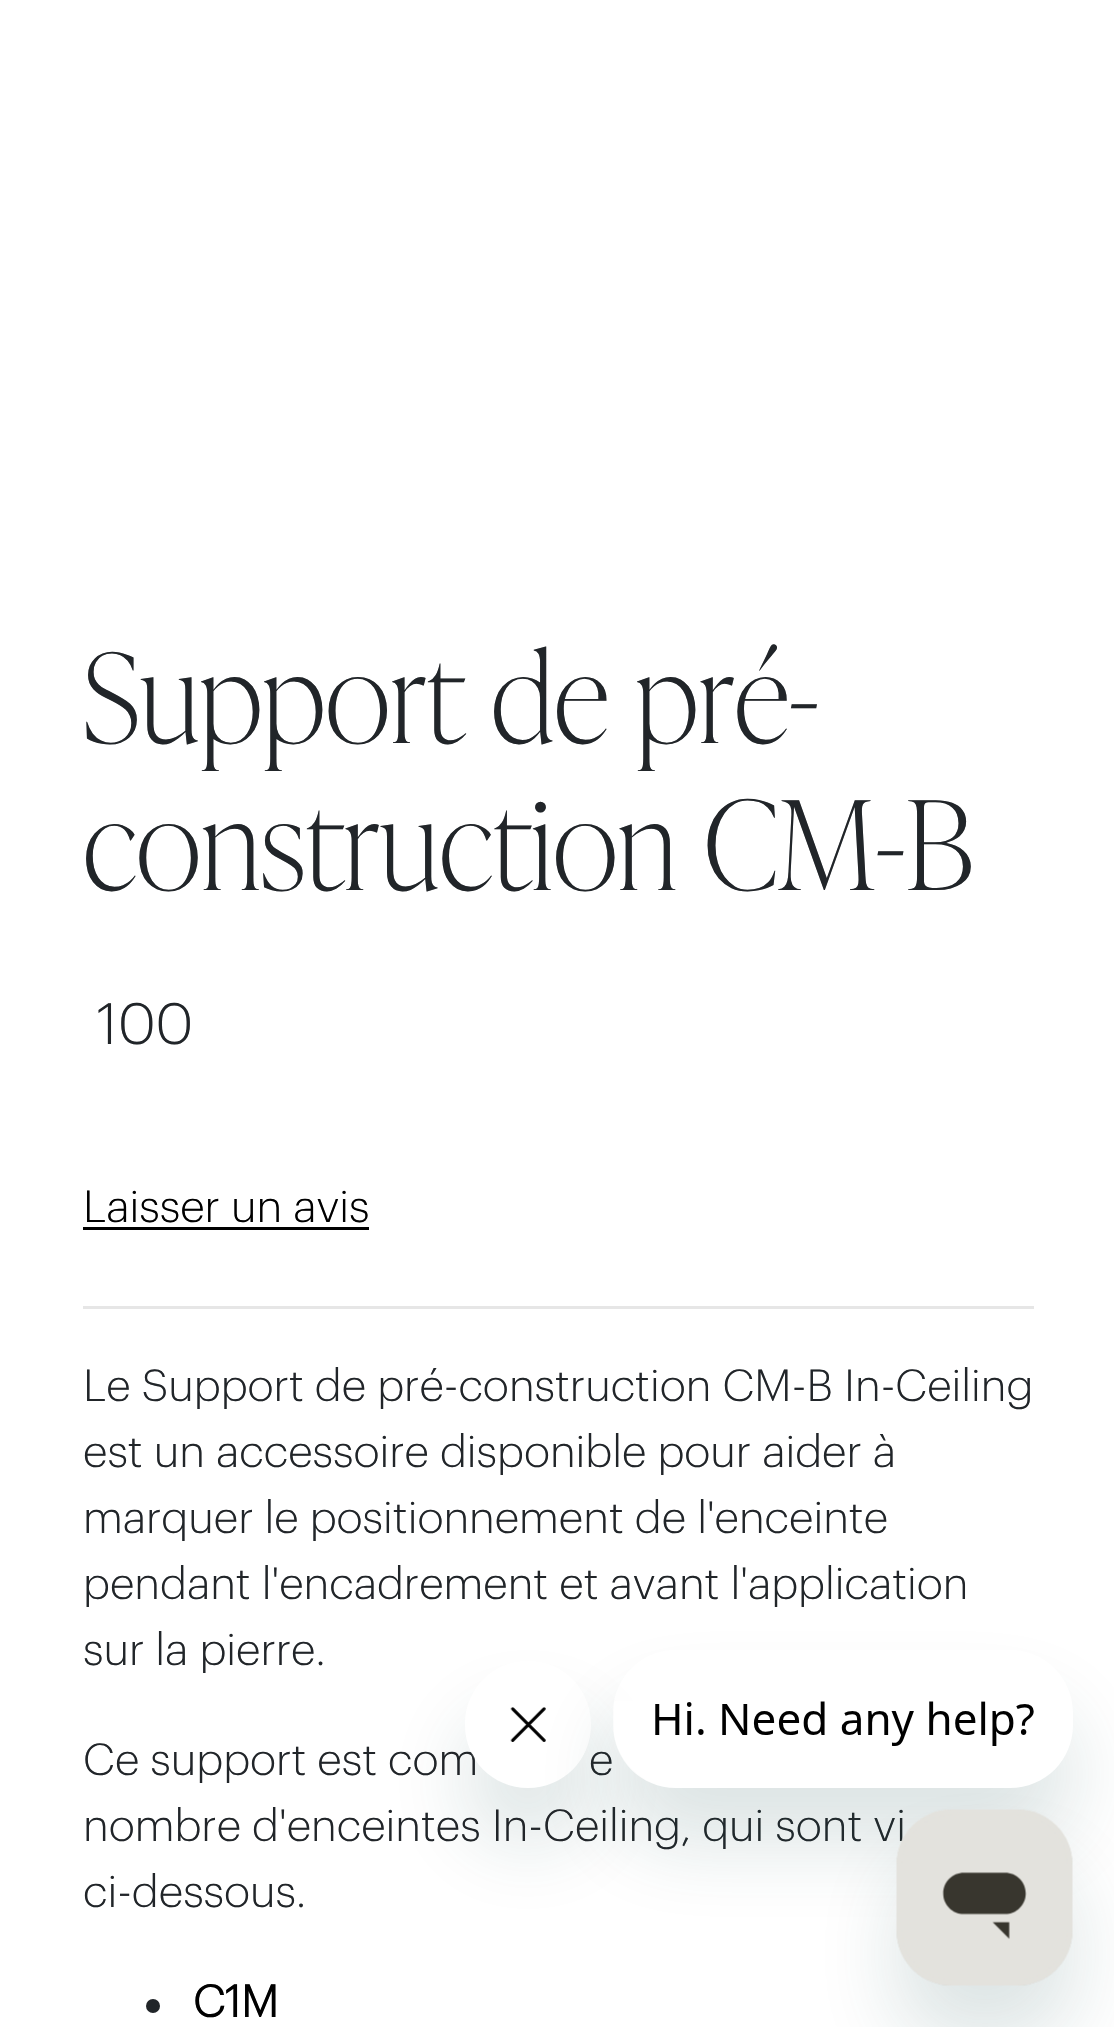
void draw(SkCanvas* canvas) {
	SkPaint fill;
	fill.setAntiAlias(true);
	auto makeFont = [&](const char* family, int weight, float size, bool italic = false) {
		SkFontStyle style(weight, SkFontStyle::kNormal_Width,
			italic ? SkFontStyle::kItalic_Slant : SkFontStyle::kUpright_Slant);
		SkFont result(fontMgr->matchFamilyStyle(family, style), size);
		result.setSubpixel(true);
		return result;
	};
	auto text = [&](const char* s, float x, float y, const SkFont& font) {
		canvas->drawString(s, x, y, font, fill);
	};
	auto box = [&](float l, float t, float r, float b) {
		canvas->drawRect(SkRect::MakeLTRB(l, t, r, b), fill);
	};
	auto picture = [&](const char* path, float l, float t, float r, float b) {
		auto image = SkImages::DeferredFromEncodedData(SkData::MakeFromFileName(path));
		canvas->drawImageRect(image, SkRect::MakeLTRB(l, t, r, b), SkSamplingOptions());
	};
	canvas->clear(0xFFFFFFFF);
	fill.setColor(0xFF000000);
	box(83, 1227, 369, 1230);
	fill.setColor(0xFFE6E6E6);
	box(83, 1306, 1034, 1309);
	fill.setColor(0xFF212529);
	canvas->drawCircle(153, 2006, 7, fill);
	canvas->save();
	canvas->clipPath(SkPathBuilder(SkPathFillType::kEvenOdd).moveTo(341, 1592).lineTo(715, 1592).lineTo(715, 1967).lineTo(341, 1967).close().moveTo(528, 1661).cubicTo(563, 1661, 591, 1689, 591, 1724).lineTo(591, 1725).cubicTo(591, 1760, 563, 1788, 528, 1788).cubicTo(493, 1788, 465, 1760, 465, 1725).lineTo(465, 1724).cubicTo(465, 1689, 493, 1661, 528, 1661).close().detach(), true);
	fill.setColor(0x2617494D);
	fill.setMaskFilter(SkMaskFilter::MakeBlur(kNormal_SkBlurStyle, 41));
	canvas->drawRoundRect(SkRect::MakeLTRB(465, 1716, 591, 1843), 63, 63, fill);
	fill.setMaskFilter(nullptr);
	canvas->restore();
	auto font1 = makeFont("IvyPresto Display", 100, 123.25f);
	fill.setColor(0xFF212529);
	text("Support de pré-", 83, 743, font1);
	text("construction CM-B", 83, 890, font1);
	auto font2 = makeFont("Graphik", 300, 57);
	text("100", 97, 1044, font2);
	auto font3 = makeFont("Graphik", 300, 44);
	fill.setColor(0xFF000000);
	text("Laisser un avis", 83, 1222, font3);
	fill.setColor(0xFF212529);
	text("Le Support de pré-construction CM-B In-Ceiling", 83, 1401, font3);
	text("est un accessoire disponible pour aider à", 83, 1467, font3);
	text("marquer le positionnement de l'enceinte", 83, 1533, font3);
	text("pendant l'encadrement et avant l'application", 83, 1599, font3);
	text("sur la pierre.", 83, 1665, font3);
	text("Ce support est com", 83, 1775, font3);
	text("e", 589, 1775, font3);
	text("nombre d'enceintes In-Ceiling, qui sont vi", 83, 1841, font3);
	text("ci-dessous.", 83, 1907, font3);
	auto font4 = makeFont("Graphik", 700, 44);
	fill.setColor(0xFF000000);
	text("C1M", 193, 2017, font4);
	picture("image1.png", 470, 1707, 586, 1785);
	canvas->save();
	canvas->clipPath(SkPathBuilder(SkPathFillType::kEvenOdd).moveTo(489, 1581).lineTo(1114, 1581).lineTo(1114, 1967).lineTo(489, 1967).close().moveTo(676, 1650).lineTo(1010, 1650).cubicTo(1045, 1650, 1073, 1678, 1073, 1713).lineTo(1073, 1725).cubicTo(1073, 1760, 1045, 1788, 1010, 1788).lineTo(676, 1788).cubicTo(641, 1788, 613, 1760, 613, 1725).lineTo(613, 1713).cubicTo(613, 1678, 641, 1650, 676, 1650).close().detach(), true);
	fill.setColor(0x2617494D);
	fill.setMaskFilter(SkMaskFilter::MakeBlur(kNormal_SkBlurStyle, 41));
	canvas->drawRoundRect(SkRect::MakeLTRB(613, 1705, 1073, 1843), 63, 63, fill);
	fill.setMaskFilter(nullptr);
	canvas->restore();
	picture("image0.png", 614, 1701, 1034, 1785);
	fill.setMaskFilter(SkMaskFilter::MakeBlur(kNormal_SkBlurStyle, 41));
	canvas->drawRoundRect(SkRect::MakeLTRB(897, 1865, 1073, 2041), 55, 55, fill);
	fill.setMaskFilter(nullptr);
	picture("image2.png", 896, 1809, 1073, 1986);
}
